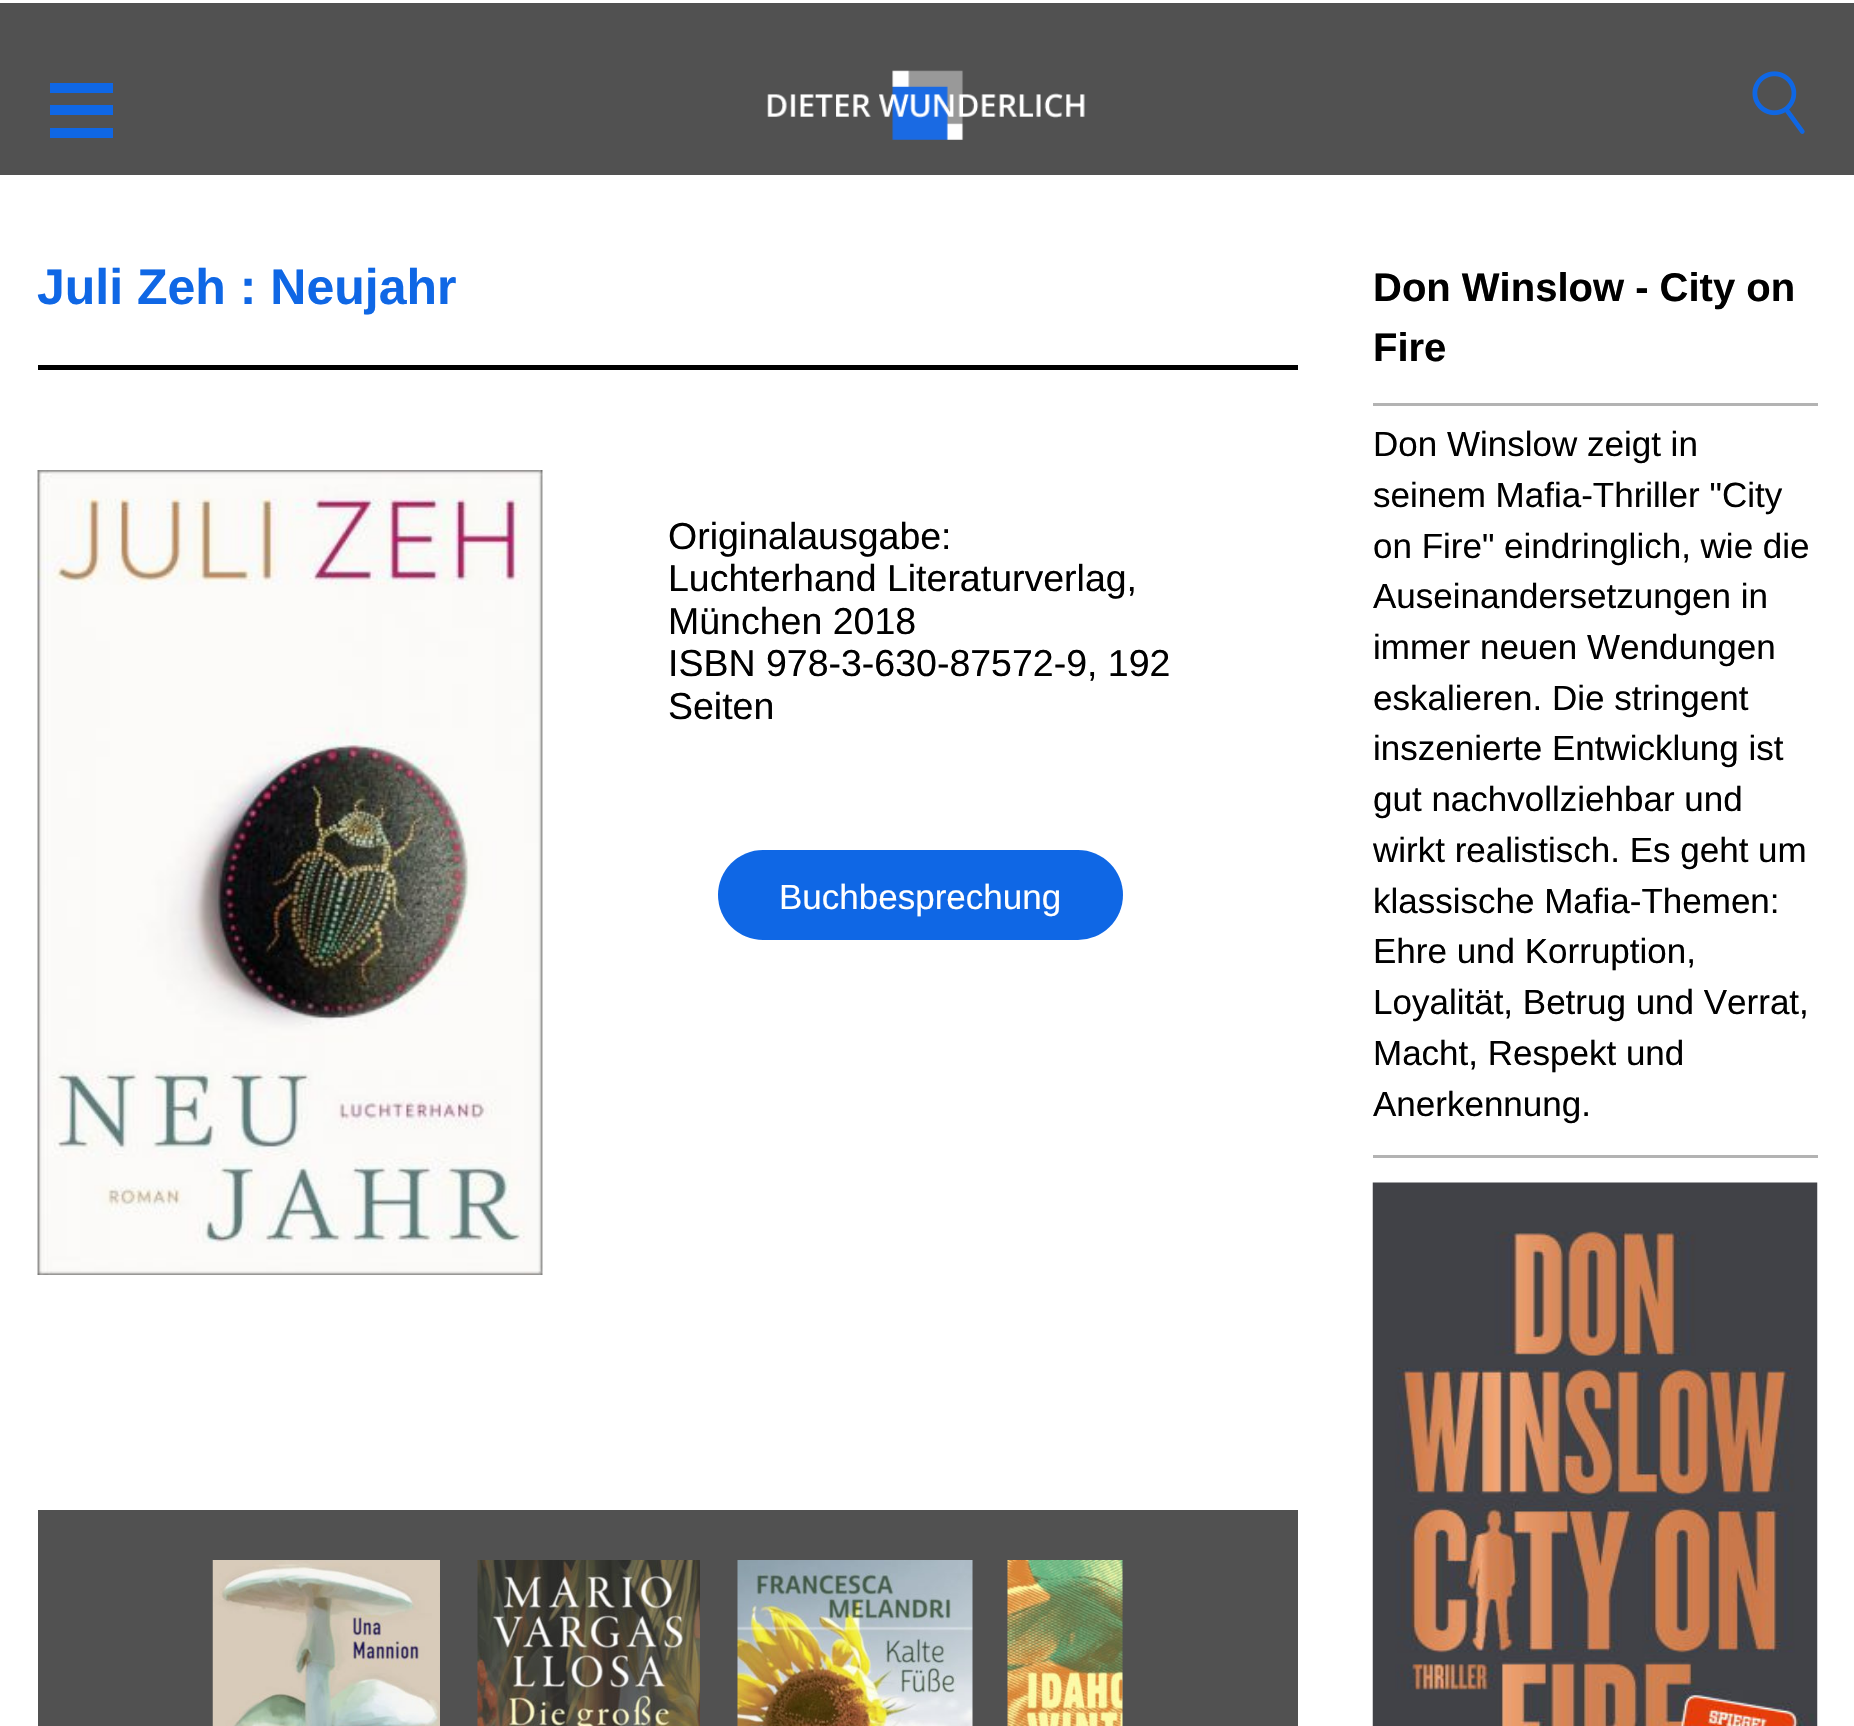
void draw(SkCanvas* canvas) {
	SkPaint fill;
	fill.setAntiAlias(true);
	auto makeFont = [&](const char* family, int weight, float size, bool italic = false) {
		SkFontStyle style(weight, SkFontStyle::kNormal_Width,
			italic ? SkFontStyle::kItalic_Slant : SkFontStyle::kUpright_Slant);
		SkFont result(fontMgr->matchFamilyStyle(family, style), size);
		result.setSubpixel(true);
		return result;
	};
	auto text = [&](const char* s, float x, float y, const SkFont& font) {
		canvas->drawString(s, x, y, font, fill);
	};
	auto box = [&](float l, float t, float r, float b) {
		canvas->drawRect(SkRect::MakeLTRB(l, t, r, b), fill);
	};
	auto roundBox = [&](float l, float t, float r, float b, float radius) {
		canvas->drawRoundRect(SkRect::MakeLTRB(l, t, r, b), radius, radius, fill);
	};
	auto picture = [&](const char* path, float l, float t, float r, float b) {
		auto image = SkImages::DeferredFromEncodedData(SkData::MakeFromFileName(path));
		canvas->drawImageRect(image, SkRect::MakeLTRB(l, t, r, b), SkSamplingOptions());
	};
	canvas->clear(0xFF515151);
	fill.setColor(0xFFFFFFFF);
	box(0, 0, 1854, 3);
	box(0, 175, 1854, 1726);
	fill.setColor(0xFF0F67E5);
	box(50, 83, 113, 93);
	box(50, 105, 113, 115);
	box(50, 128, 113, 138);
	picture("image0.png", 767, 70, 1085, 140);
	picture("image1.png", 1752, 71, 1805, 134);
	fill.setColor(0xFF000000);
	box(38, 365, 1298, 370);
	picture("image2.png", 37, 470, 543, 1275);
	fill.setColor(0xFF0F67E5);
	roundBox(718, 850, 1123, 940, 45);
	fill.setColor(0xFF515151);
	box(38, 1510, 1298, 1726);
	picture("image3.png", 212, 1560, 440, 1726);
	picture("image4.png", 477, 1560, 700, 1726);
	picture("image5.png", 737, 1560, 973, 1726);
	picture("image6.png", 1007, 1560, 1123, 1726);
	fill.setColor(0xFFB3B3B3);
	box(1373, 403, 1818, 406);
	box(1373, 1155, 1818, 1158);
	picture("image7.png", 1372, 1182, 1818, 1726);
	auto font1 = makeFont("Liberation Sans", 700, 50);
	fill.setColor(0xFF0F67E5);
	text("Juli Zeh : Neujahr", 37, 304, font1);
	auto font2 = makeFont("Liberation Sans", 400, 37.5f);
	fill.setColor(0xFF000000);
	text("Originalausgabe:", 668, 549, font2);
	text("Luchterhand Literaturverlag,", 668, 591, font2);
	text("München 2018", 668, 634, font2);
	text("ISBN 978-3-630-87572-9, 192", 668, 676, font2);
	text("Seiten", 668, 719, font2);
	auto font3 = makeFont("Liberation Sans", 400, 35);
	fill.setColor(0xFFFFFFFF);
	text("Buchbesprechung", 779, 909, font3);
	auto font4 = makeFont("Liberation Sans", 700, 40);
	fill.setColor(0xFF000000);
	text("Don Winslow - City on", 1373, 301, font4);
	text("Fire", 1373, 361, font4);
	text("Don Winslow zeigt in", 1373, 456, font3);
	text("seinem Mafia-Thriller \"City", 1373, 507, font3);
	text("on Fire\" eindringlich, wie die", 1373, 558, font3);
	text("Auseinandersetzungen in", 1373, 608, font3);
	text("immer neuen Wendungen", 1373, 659, font3);
	text("eskalieren. Die stringent", 1373, 710, font3);
	text("inszenierte Entwicklung ist", 1373, 760, font3);
	text("gut nachvollziehbar und", 1373, 811, font3);
	text("wirkt realistisch. Es geht um", 1373, 862, font3);
	text("klassische Mafia-Themen:", 1373, 913, font3);
	text("Ehre und Korruption,", 1373, 963, font3);
	text("Loyalität, Betrug und Verrat,", 1373, 1014, font3);
	text("Macht, Respekt und", 1373, 1065, font3);
	text("Anerkennung.", 1373, 1116, font3);
}
